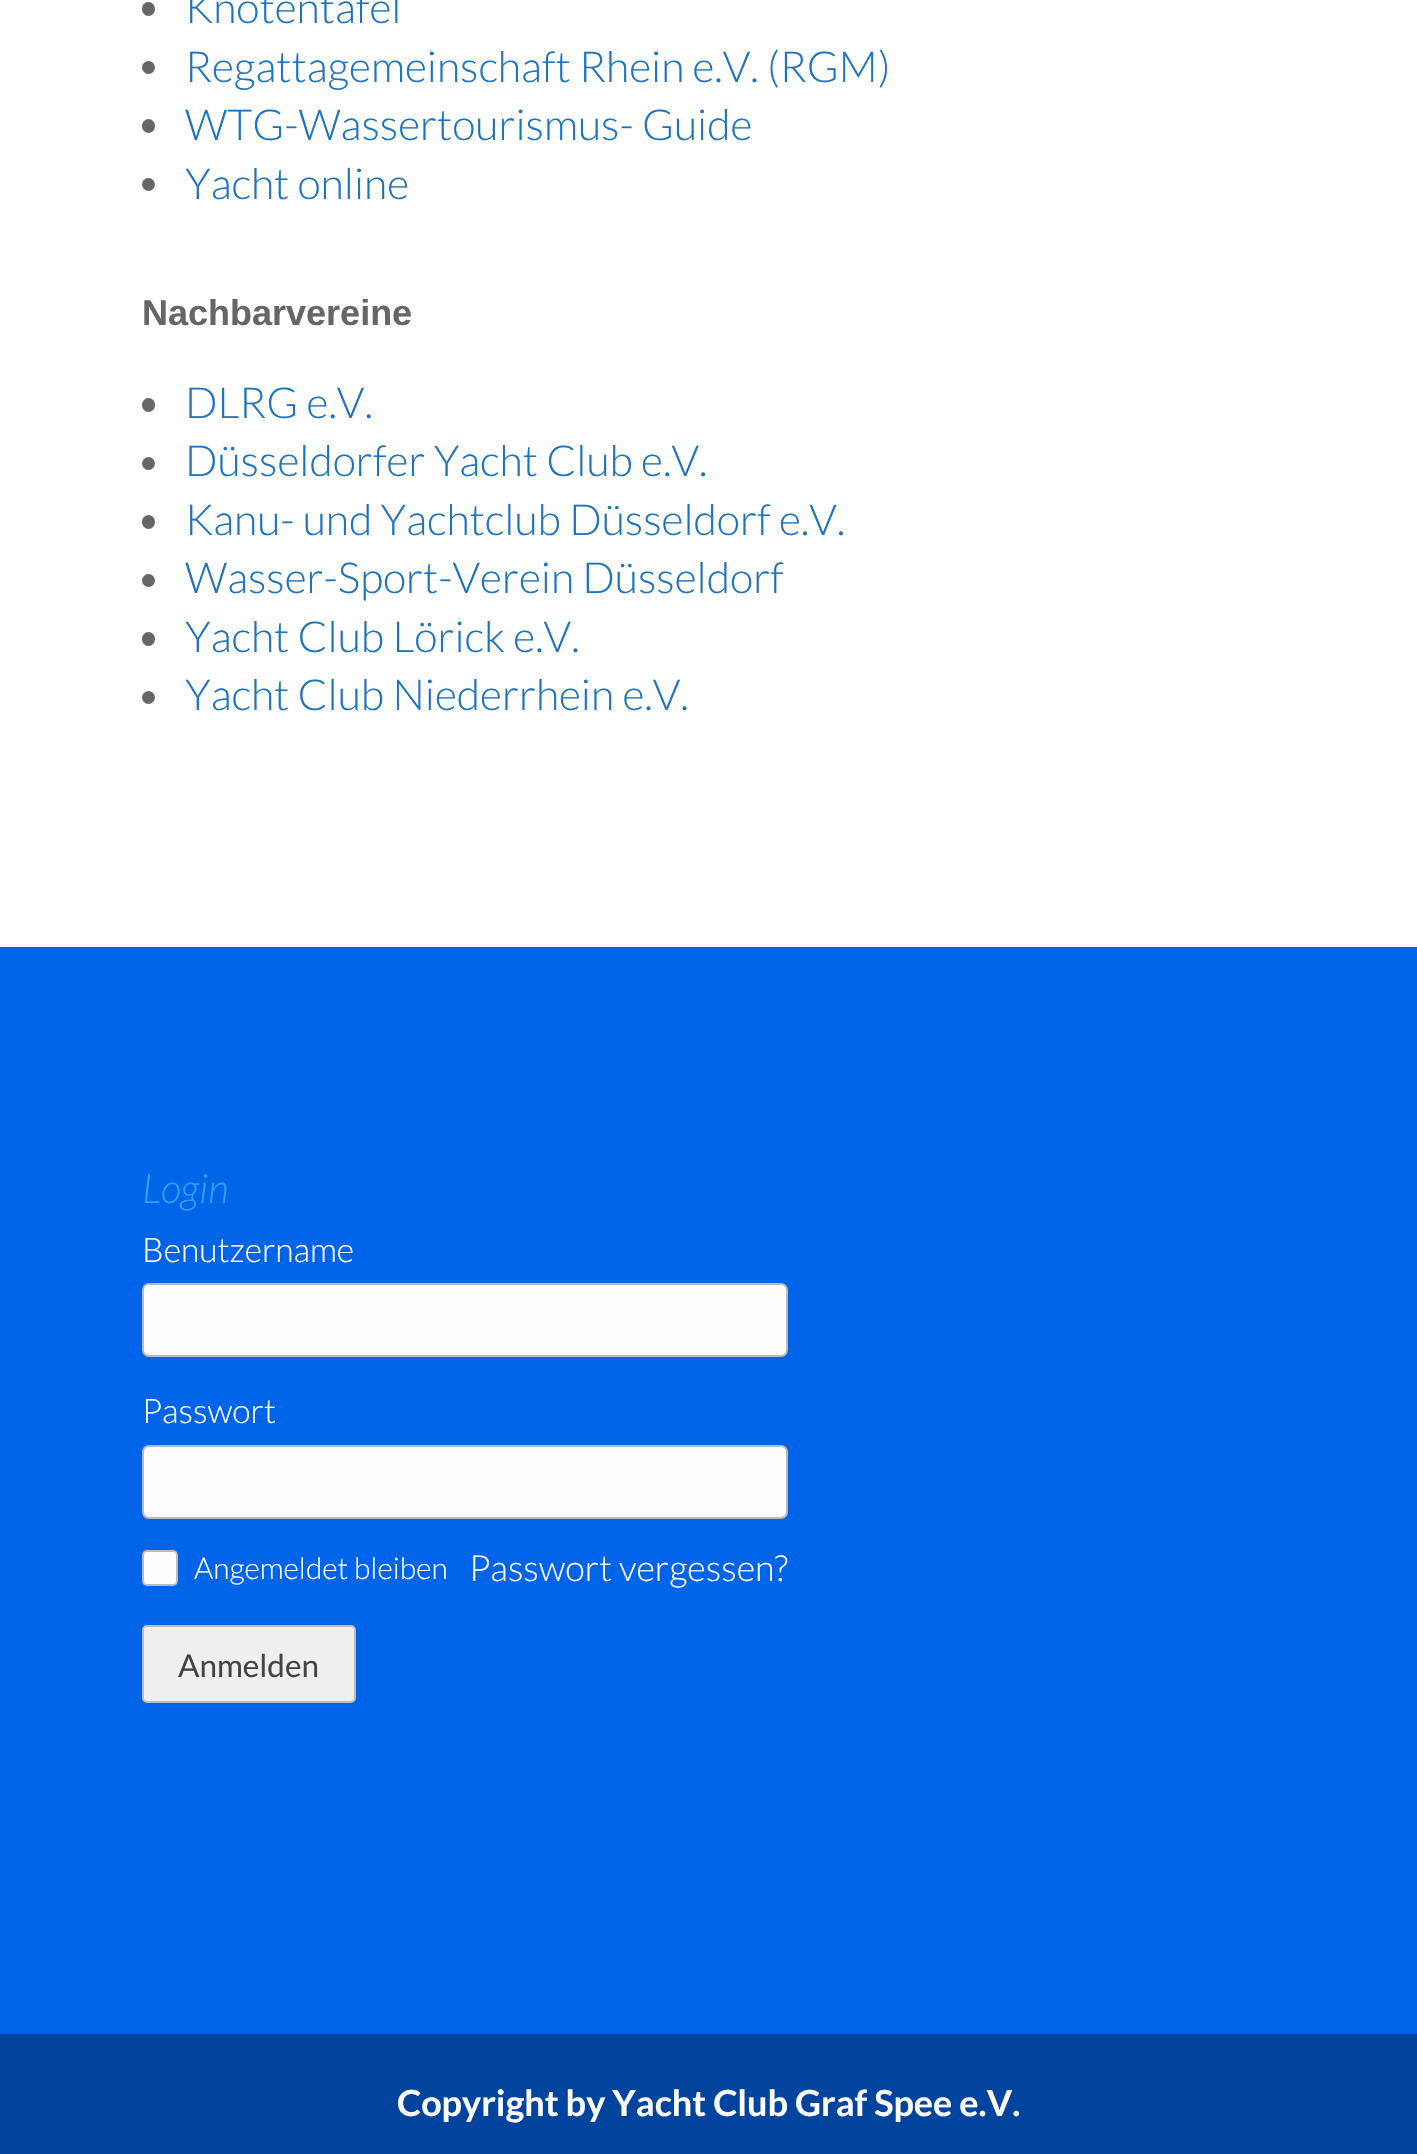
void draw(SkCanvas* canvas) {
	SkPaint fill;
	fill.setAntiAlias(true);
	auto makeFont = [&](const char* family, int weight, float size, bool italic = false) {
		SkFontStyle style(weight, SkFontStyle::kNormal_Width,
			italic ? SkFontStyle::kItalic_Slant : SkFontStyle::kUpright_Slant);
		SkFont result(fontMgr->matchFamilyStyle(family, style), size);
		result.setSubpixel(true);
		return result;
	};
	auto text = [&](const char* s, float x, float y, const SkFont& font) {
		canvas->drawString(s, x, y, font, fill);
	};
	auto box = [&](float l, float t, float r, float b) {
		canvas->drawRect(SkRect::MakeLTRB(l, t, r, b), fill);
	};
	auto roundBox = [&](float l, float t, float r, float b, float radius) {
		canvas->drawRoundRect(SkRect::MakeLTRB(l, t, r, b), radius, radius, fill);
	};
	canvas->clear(0xFFFFFFFF);
	fill.setColor(0xFF666666);
	roundBox(142, 2, 155, 16, 6.5f);
	canvas->drawCircle(148.5f, 67.5f, 6.5f, fill);
	roundBox(142, 119, 155, 133, 6.5f);
	canvas->drawCircle(148.5f, 184.5f, 6.5f, fill);
	roundBox(142, 398, 155, 412, 6.5f);
	canvas->drawCircle(148.5f, 463.5f, 6.5f, fill);
	roundBox(142, 515, 155, 529, 6.5f);
	canvas->drawCircle(148.5f, 580.5f, 6.5f, fill);
	roundBox(142, 632, 155, 646, 6.5f);
	canvas->drawCircle(148.5f, 697.5f, 6.5f, fill);
	fill.setColor(0xFF0064E8);
	box(0, 947, 1417, 2034);
	fill.setColor(0xFFFEFEFE);
	canvas->drawRoundRect(SkRect::MakeLTRB(143, 1284, 787, 1356), 6, 6, fill);
	fill.setStyle(SkPaint::kStroke_Style);
	fill.setStrokeWidth(2);
	fill.setColor(0xFFBBBBBB);
	canvas->drawRoundRect(SkRect::MakeLTRB(143, 1284, 787, 1356), 6, 6, fill);
	fill.setStyle(SkPaint::kFill_Style);
	fill.setColor(0xFFFEFEFE);
	canvas->drawRoundRect(SkRect::MakeLTRB(143, 1446, 787, 1518), 6, 6, fill);
	fill.setStyle(SkPaint::kStroke_Style);
	fill.setColor(0xFFBBBBBB);
	canvas->drawRoundRect(SkRect::MakeLTRB(143, 1446, 787, 1518), 6, 6, fill);
	fill.setStyle(SkPaint::kFill_Style);
	fill.setColor(0xFFFEFEFE);
	canvas->drawRoundRect(SkRect::MakeLTRB(143, 1551, 177, 1585), 4, 4, fill);
	fill.setStyle(SkPaint::kStroke_Style);
	fill.setColor(0xFFBBBBBB);
	canvas->drawRoundRect(SkRect::MakeLTRB(143, 1551, 177, 1585), 4, 4, fill);
	fill.setStyle(SkPaint::kFill_Style);
	fill.setColor(0xFFEFEFEF);
	canvas->drawRoundRect(SkRect::MakeLTRB(143, 1626, 355, 1702), 4, 4, fill);
	fill.setStyle(SkPaint::kStroke_Style);
	fill.setColor(0xFFBDBDBD);
	canvas->drawRoundRect(SkRect::MakeLTRB(143, 1626, 355, 1702), 4, 4, fill);
	fill.setStyle(SkPaint::kFill_Style);
	fill.setColor(0xFF00449E);
	box(0, 2034, 1417, 2154);
	auto font1 = makeFont("Lato", 300, 42.75f);
	fill.setColor(0xFF1E73BE);
	text("Knotentafel", 185, 23, font1);
	text("Regattagemeinschaft Rhein e.V. (RGM)", 185, 82, font1);
	text("WTG-Wassertourismus- Guide", 185, 140, font1);
	text("Yacht online", 185, 199, font1);
	auto font2 = makeFont("Liberation Sans", 700, 36);
	fill.setColor(0xFF666666);
	text("Nachbarvereine", 142, 325, font2);
	fill.setColor(0xFF1E73BE);
	text("DLRG e.V.", 185, 418, font1);
	text("Düsseldorfer Yacht Club e.V.", 185, 476, font1);
	text("Kanu- und Yachtclub Düsseldorf e.V.", 185, 535, font1);
	text("Wasser-Sport-Verein Düsseldorf", 185, 593, font1);
	text("Yacht Club Lörick e.V.", 185, 652, font1);
	text("Yacht Club Niederrhein e.V.", 185, 710, font1);
	auto font3 = makeFont("Lato", 300, 40.5f, true);
	fill.setColor(0xFF2EA3F2);
	text("Login", 142, 1203, font3);
	auto font4 = makeFont("Lato", 300, 33.75f);
	fill.setColor(0xFFFFFFFF);
	text("Benutzername", 142, 1262, font4);
	text("Passwort", 142, 1423, font4);
	auto font5 = makeFont("Lato", 300, 29.9f);
	text("Angemeldet bleiben", 194, 1579, font5);
	auto font6 = makeFont("Lato", 300, 36);
	text("Passwort vergessen?", 469, 1581, font6);
	auto font7 = makeFont("Lato", 400, 31.5f);
	fill.setColor(0xFF444444);
	text("Anmelden", 178, 1677, font7);
	auto font8 = makeFont("Lato", 700, 36);
	fill.setColor(0xFFFFFFFF);
	text("Copyright by Yacht Club Graf Spee e.V.", 397, 2116, font8);
}
